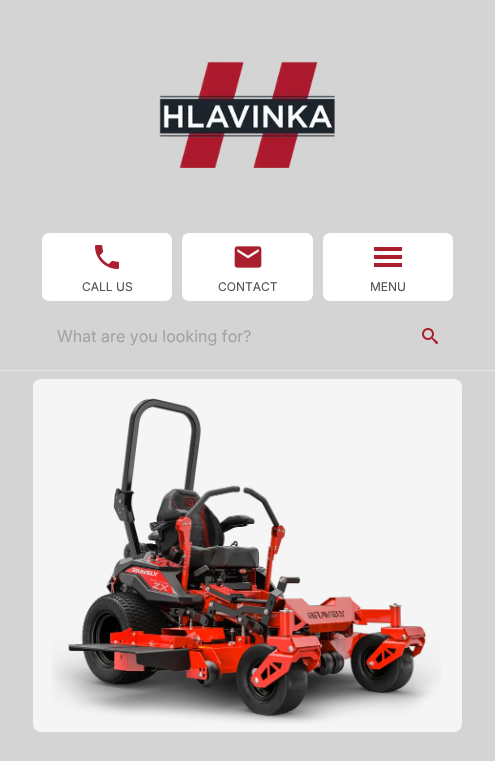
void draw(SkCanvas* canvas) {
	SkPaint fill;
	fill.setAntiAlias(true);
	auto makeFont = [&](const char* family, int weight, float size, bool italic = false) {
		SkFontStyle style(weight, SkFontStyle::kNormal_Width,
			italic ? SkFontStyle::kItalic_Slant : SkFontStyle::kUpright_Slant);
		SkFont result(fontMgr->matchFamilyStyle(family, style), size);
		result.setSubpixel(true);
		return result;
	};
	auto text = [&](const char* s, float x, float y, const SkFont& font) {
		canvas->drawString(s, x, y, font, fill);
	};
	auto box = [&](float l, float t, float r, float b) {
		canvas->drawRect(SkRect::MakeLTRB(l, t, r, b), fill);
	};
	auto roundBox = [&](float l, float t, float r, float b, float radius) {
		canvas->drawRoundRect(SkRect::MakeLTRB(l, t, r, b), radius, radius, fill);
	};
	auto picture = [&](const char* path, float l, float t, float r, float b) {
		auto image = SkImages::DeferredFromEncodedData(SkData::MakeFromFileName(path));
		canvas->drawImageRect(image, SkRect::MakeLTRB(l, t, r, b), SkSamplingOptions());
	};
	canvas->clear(0xFFD4D4D4);
	fill.setColor(0xFFE5E5E5);
	box(0, 370, 495, 371);
	picture("image0.png", 159, 61, 335, 168);
	fill.setColor(0xFFFFFFFF);
	canvas->drawRoundRect(SkRect::MakeLTRB(41.5f, 232.5f, 172.5f, 301.5f), 7.5f, 7.5f, fill);
	fill.setStyle(SkPaint::kStroke_Style);
	fill.setStrokeWidth(1);
	fill.setColor(0xFFD4D4D4);
	canvas->drawRoundRect(SkRect::MakeLTRB(41.5f, 232.5f, 172.5f, 301.5f), 7.5f, 7.5f, fill);
	picture("image1.png", 95, 245, 119, 269);
	fill.setStyle(SkPaint::kFill_Style);
	fill.setColor(0xFFFFFFFF);
	canvas->drawRoundRect(SkRect::MakeLTRB(181.5f, 232.5f, 313.5f, 301.5f), 7.5f, 7.5f, fill);
	fill.setStyle(SkPaint::kStroke_Style);
	fill.setColor(0xFFD4D4D4);
	canvas->drawRoundRect(SkRect::MakeLTRB(181.5f, 232.5f, 313.5f, 301.5f), 7.5f, 7.5f, fill);
	picture("image2.png", 234, 246, 262, 268);
	fill.setStyle(SkPaint::kFill_Style);
	fill.setColor(0xFFFFFFFF);
	canvas->drawRoundRect(SkRect::MakeLTRB(322.5f, 232.5f, 453.5f, 301.5f), 7.5f, 7.5f, fill);
	fill.setStyle(SkPaint::kStroke_Style);
	fill.setColor(0xFFD4D4D4);
	canvas->drawRoundRect(SkRect::MakeLTRB(322.5f, 232.5f, 453.5f, 301.5f), 7.5f, 7.5f, fill);
	picture("image3.png", 374, 247, 402, 267);
	picture("image4.png", 422, 328, 438, 344);
	fill.setStyle(SkPaint::kFill_Style);
	fill.setColor(0xFFF5F5F5);
	roundBox(33, 379, 462, 732, 8);
	picture("image5.png", 51, 398, 441, 724);
	auto font1 = makeFont("Inter", 400, 12);
	fill.setColor(0xFF525252);
	text("CALL US", 82, 291, font1);
	text("CONTACT", 218, 291, font1);
	text("MENU", 370, 291, font1);
	auto font2 = makeFont("Inter", 400, 16);
	fill.setColor(0xFFA3A3A3);
	text("What are you looking for?", 57, 342, font2);
}
